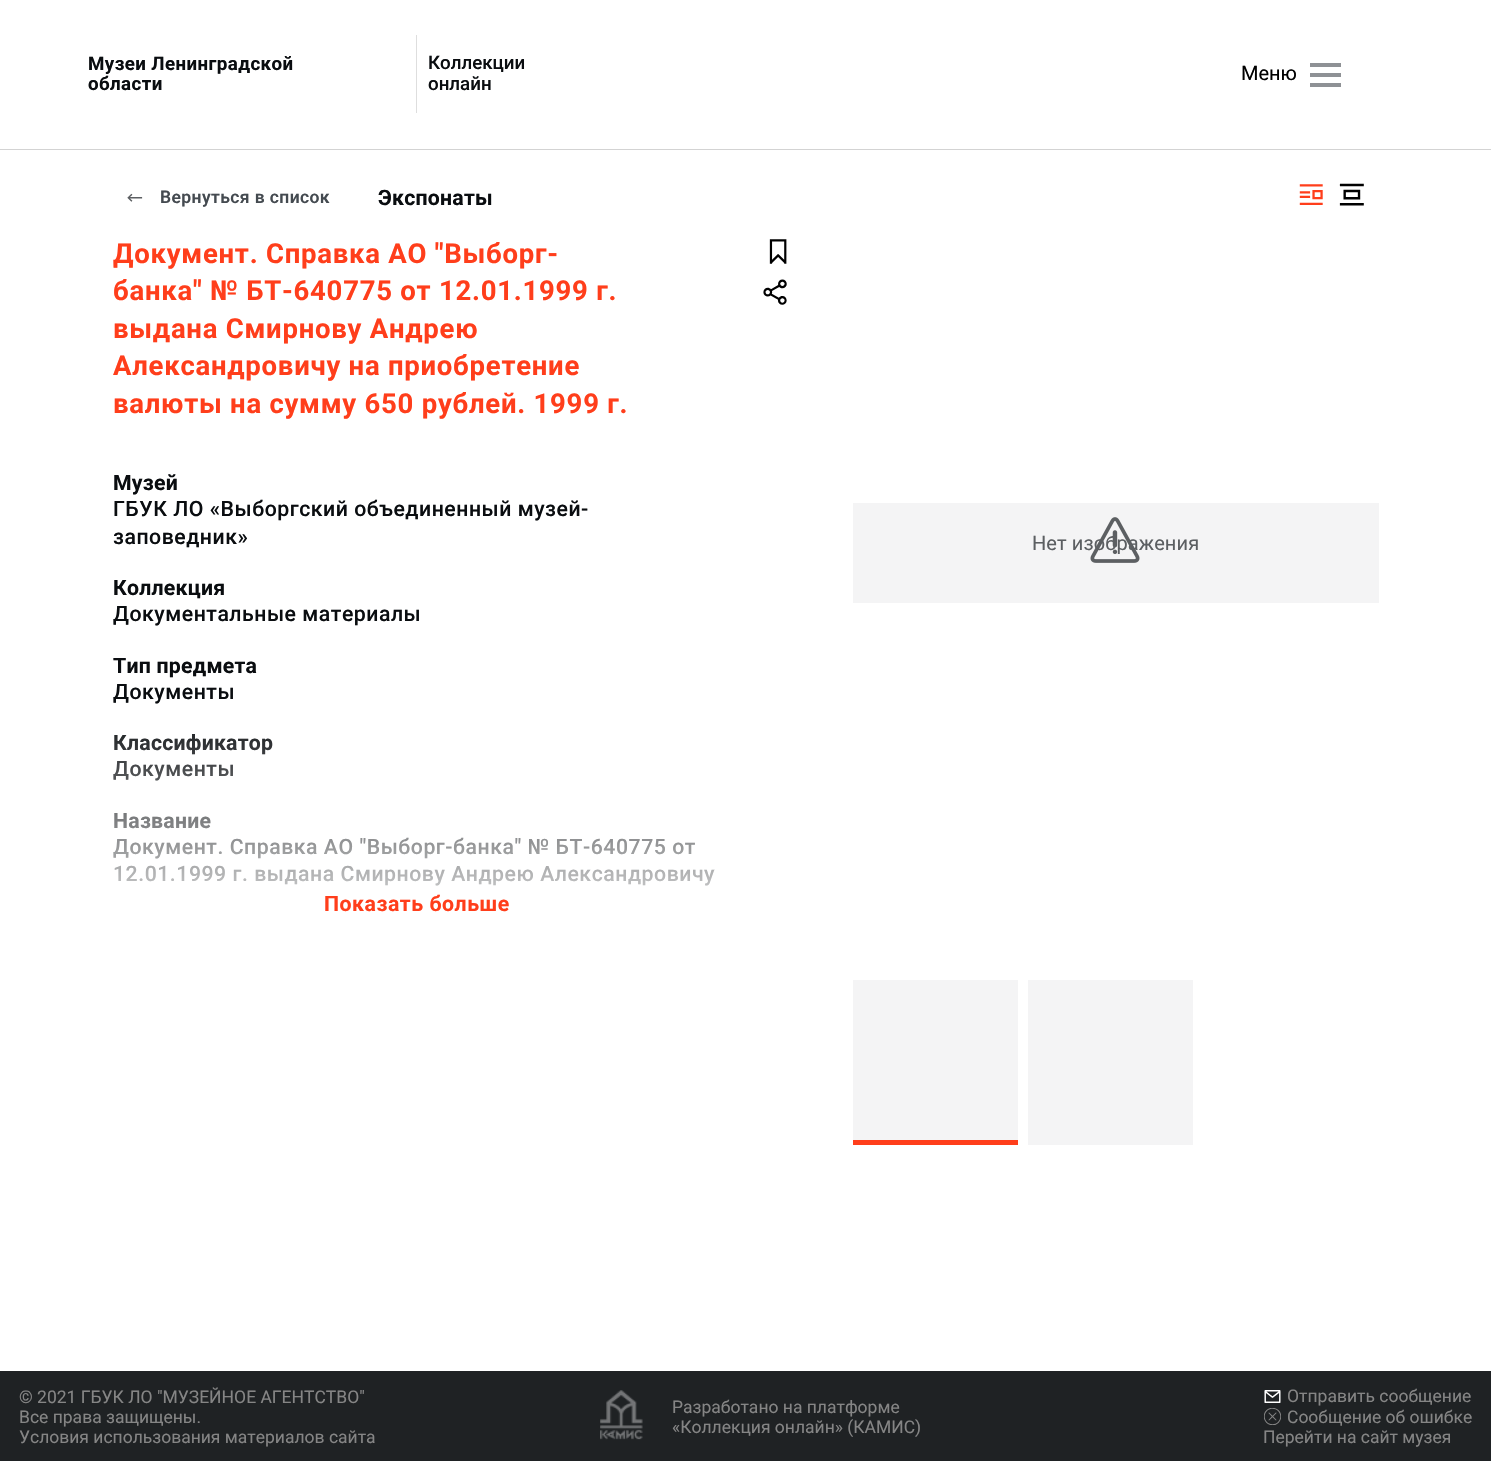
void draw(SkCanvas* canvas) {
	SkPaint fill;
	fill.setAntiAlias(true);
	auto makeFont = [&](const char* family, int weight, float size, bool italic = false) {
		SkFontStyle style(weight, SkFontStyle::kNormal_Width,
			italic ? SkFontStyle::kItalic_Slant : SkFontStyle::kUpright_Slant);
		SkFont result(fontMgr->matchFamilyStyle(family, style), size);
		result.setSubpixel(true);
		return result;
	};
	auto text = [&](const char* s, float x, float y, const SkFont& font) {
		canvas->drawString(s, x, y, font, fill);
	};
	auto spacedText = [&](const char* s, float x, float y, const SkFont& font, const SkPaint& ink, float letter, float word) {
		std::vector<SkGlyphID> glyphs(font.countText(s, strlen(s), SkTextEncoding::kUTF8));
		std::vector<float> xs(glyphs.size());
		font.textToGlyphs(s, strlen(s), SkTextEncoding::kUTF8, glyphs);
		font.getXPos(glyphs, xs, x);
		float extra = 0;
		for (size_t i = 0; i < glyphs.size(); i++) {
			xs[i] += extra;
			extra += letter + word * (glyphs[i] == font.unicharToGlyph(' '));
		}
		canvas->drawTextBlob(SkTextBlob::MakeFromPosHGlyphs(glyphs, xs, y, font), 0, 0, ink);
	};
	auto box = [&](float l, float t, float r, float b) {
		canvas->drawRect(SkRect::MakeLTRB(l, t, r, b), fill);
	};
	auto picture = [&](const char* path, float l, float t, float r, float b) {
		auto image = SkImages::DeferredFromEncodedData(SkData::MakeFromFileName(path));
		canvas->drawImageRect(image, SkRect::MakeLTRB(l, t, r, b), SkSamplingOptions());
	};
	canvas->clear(0xFFFFFFFF);
	fill.setColor(0xFFD3D3D3);
	box(0, 149, 1491, 150);
	fill.setColor(0xFFDEDEDE);
	box(416, 35, 417, 113);
	fill.setColor(0xFF8E9195);
	box(1310, 63, 1341, 67);
	box(1310, 73, 1341, 77);
	box(1310, 83, 1341, 87);
	picture("image0.png", 127, 193, 143, 202);
	picture("image1.png", 1299, 184, 1323, 205);
	picture("image2.png", 1339, 183, 1364, 206);
	picture("image3.png", 769, 239, 787, 264);
	picture("image4.png", 763, 279, 787, 305);
	fill.setColor(0xFFF4F4F5);
	box(853, 503, 1379, 603);
	box(853, 980, 1018, 1140);
	fill.setColor(0xFFFF3E1B);
	box(853, 1140, 1018, 1145);
	fill.setColor(0xFFF4F4F5);
	box(1028, 980, 1193, 1145);
	fill.setColor(0xFF1F2224);
	box(0, 1371, 1491, 1461);
	picture("image6.png", 600, 1390, 643, 1440);
	picture("image7.png", 1264, 1390, 1281, 1403);
	picture("image8.png", 1264, 1408, 1281, 1425);
	auto font1 = makeFont("Roboto", 700, 18.75f);
	fill.setColor(0xFF0A0D10);
	spacedText("Музеи Ленинградской", 88, 70, font1, fill, 0.4f, 0);
	spacedText("области", 88, 90, font1, fill, 0.4f, 0);
	auto font2 = makeFont("Roboto", 500, 18.75f);
	text("Коллекции", 428, 69, font2);
	text("онлайн", 428, 90, font2);
	auto font3 = makeFont("Roboto", 400, 20);
	fill.setColor(0xFF000000);
	text("Меню", 1241, 80, font3);
	auto font4 = makeFont("Roboto", 600, 17.5f);
	fill.setColor(0xFF444A50);
	spacedText("Вернуться в список", 160, 203, font4, fill, 0.4f, 0);
	auto font5 = makeFont("Roboto", 700, 21.25f);
	fill.setColor(0xFF0A0D10);
	spacedText("Экспонаты", 378, 205, font5, fill, 0.25f, 0);
	auto font6 = makeFont("Roboto", 700, 27.5f);
	fill.setColor(0xFFFF3E1B);
	spacedText("Документ. Справка АО \"Выборг-", 113, 263, font6, fill, 0.75f, 0);
	spacedText("банка\" № БТ-640775 от 12.01.1999 г.", 113, 300, font6, fill, 0.75f, 0);
	spacedText("выдана Смирнову Андрею", 113, 338, font6, fill, 0.75f, 0);
	spacedText("Александровичу на приобретение", 113, 375, font6, fill, 0.75f, 0);
	spacedText("валюты на сумму 650 рублей. 1999 г.", 113, 413, font6, fill, 0.75f, 0);
	fill.setColor(0xFF0A0D10);
	spacedText("Музей", 113, 490, font5, fill, 0.25f, 0);
	auto font7 = makeFont("Roboto", 500, 21.25f);
	spacedText("ГБУК ЛО «Выборгский объединенный музей-", 113, 516, font7, fill, 0.53f, 0);
	spacedText("заповедник»", 113, 544, font7, fill, 0.53f, 0);
	spacedText("Коллекция", 113, 595, font5, fill, 0.25f, 0);
	canvas->save();
	canvas->clipRect(SkRect::MakeLTRB(113, 460, 720, 1010));
	spacedText("Документальные материалы", 113, 621, font7, fill, 0.53f, 0);
	canvas->restore();
	spacedText("Тип предмета", 113, 673, font5, fill, 0.25f, 0);
	canvas->save();
	canvas->clipRect(SkRect::MakeLTRB(113, 460, 720, 1010));
	spacedText("Документы", 113, 699, font7, fill, 0.53f, 0);
	canvas->restore();
	spacedText("Классификатор", 113, 750, font5, fill, 0.25f, 0);
	canvas->save();
	canvas->clipRect(SkRect::MakeLTRB(113, 460, 720, 1010));
	spacedText("Документы", 113, 776, font7, fill, 0.53f, 0);
	canvas->restore();
	spacedText("Название", 113, 828, font5, fill, 0.25f, 0);
	canvas->save();
	canvas->clipRect(SkRect::MakeLTRB(113, 460, 720, 1010));
	spacedText("Документ. Справка АО \"Выборг-банка\" № БТ-640775 от", 113, 854, font7, fill, 0.53f, 0);
	canvas->restore();
	spacedText("12.01.1999 г. выдана Смирнову Андрею Александровичу", 113, 881, font7, fill, 0.53f, 0);
	{
		const SkColor colors[] = {0x03FFFFFF, 0xFFFFFFFF};
		const float stops[] = {0, 0.8f};
		const SkPoint ends[] = {{416, 710}, {416, 1010}};
		fill.setShader(SkGradientShader::MakeLinear(ends, colors, stops, 2, SkTileMode::kClamp));
		fill.setAlpha(255);
	}
	box(113, 734, 714, 886);
	fill.setShader(nullptr);
	fill.setColor(0xFFFF3E1B);
	spacedText("Показать больше", 324, 911, font5, fill, 0.53f, 0);
	fill.setColor(0xFF5C5F62);
	spacedText("Нет изображения", 1032, 550, font3, fill, 0.1f, 0);
	picture("image5.png", 1090, 517, 1140, 563);
	auto font8 = makeFont("Roboto", 400, 17.5f);
	fill.setColor(0xFF858585);
	text("© 2021 ГБУК ЛО \"МУЗЕЙНОЕ АГЕНТСТВО\"", 19, 1403, font8);
	text("Все права защищены.", 19, 1423, font8);
	text("Условия использования материалов сайта", 19, 1443, font8);
	text("Разработано на платформе", 672, 1413, font8);
	text("«Коллекция онлайн» (КАМИС)", 672, 1433, font8);
	text("Отправить сообщение", 1287, 1402, font8);
	text("Сообщение об ошибке", 1287, 1423, font8);
	text("Перейти на сайт музея", 1263, 1443, font8);
}
